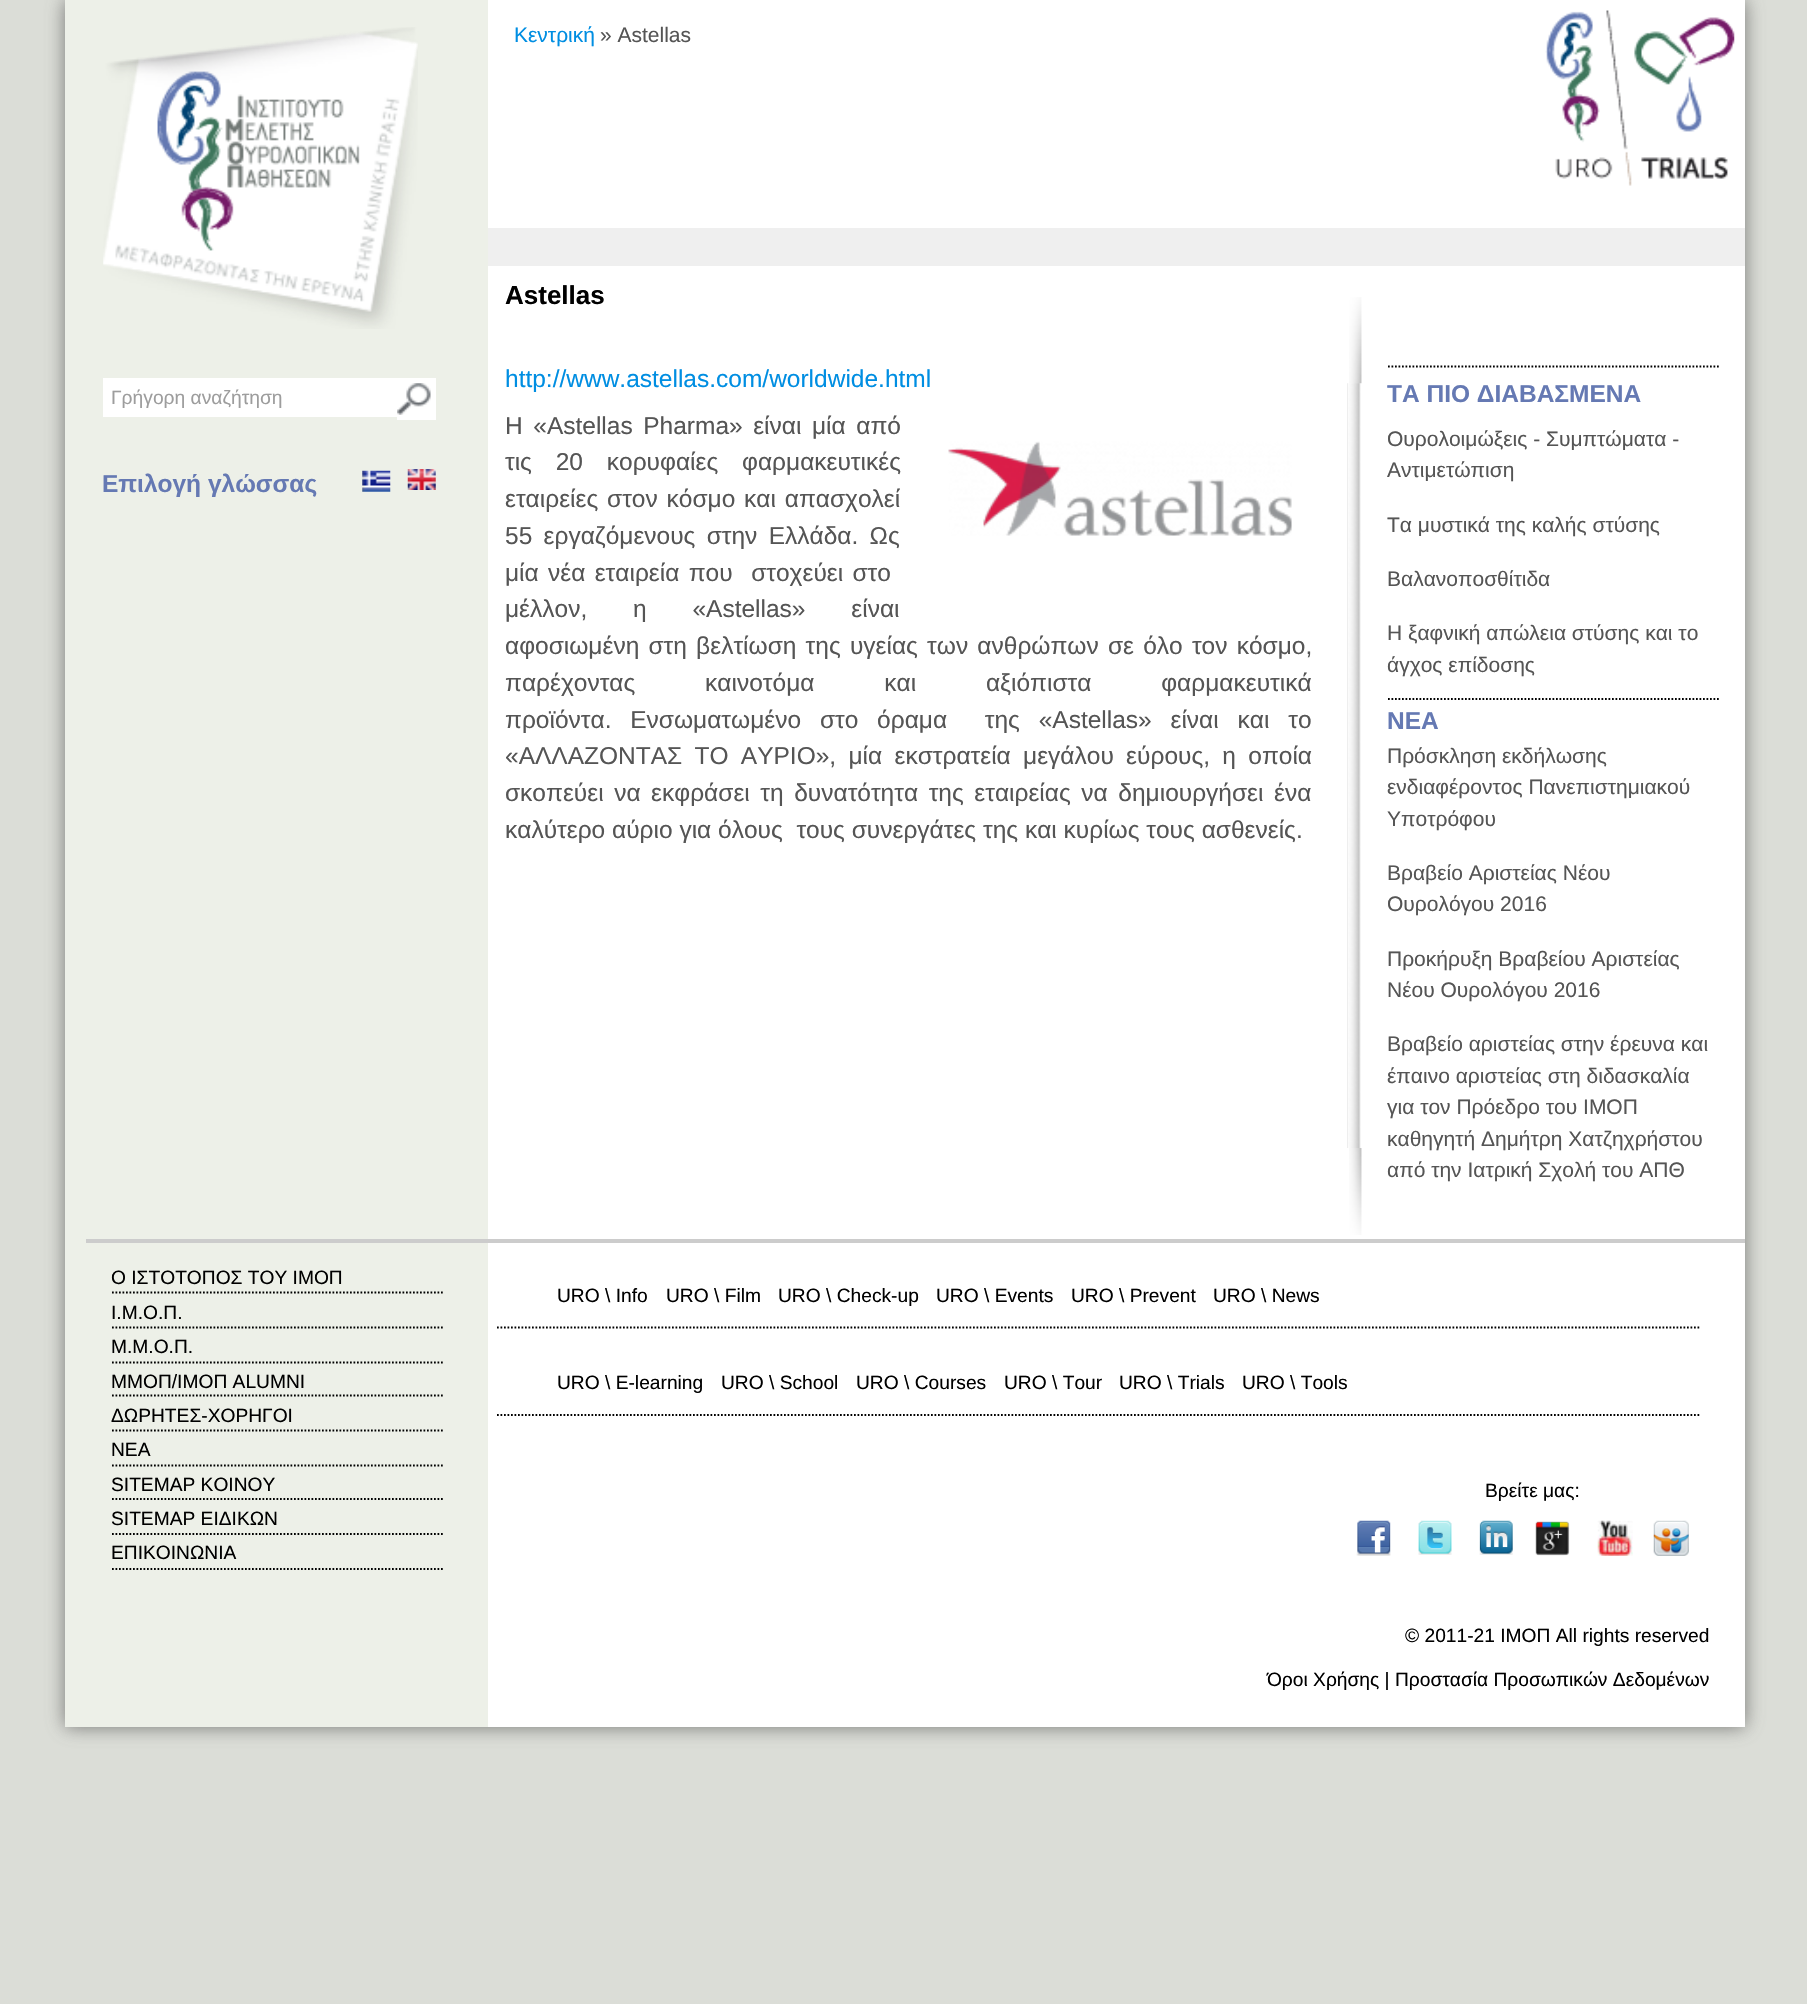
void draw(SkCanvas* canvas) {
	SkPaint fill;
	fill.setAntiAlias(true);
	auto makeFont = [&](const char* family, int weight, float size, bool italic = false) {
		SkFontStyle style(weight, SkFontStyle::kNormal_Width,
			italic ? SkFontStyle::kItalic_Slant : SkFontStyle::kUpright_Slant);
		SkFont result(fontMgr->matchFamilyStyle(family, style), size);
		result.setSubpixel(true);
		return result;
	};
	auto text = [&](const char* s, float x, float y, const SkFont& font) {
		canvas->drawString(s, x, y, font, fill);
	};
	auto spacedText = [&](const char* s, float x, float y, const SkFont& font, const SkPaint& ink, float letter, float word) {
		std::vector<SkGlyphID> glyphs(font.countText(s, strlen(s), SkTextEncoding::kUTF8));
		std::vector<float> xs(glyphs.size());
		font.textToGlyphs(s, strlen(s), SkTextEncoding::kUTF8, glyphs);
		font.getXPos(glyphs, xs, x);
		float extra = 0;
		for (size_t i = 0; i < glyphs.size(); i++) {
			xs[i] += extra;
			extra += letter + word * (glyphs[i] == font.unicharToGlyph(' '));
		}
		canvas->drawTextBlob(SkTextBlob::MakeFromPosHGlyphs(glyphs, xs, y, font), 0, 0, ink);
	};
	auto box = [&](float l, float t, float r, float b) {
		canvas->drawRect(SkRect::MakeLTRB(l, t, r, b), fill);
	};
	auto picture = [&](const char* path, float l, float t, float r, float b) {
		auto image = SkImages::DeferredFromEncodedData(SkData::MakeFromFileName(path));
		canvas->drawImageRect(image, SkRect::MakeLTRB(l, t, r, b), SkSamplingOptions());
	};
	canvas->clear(0xFFDBDDD7);
	fill.setColor(0xB34C4C4C);
	fill.setMaskFilter(SkMaskFilter::MakeBlur(kNormal_SkBlurStyle, 9));
	canvas->drawRect(SkRect::MakeLTRB(65, 0, 1745, 1727), fill);
	fill.setMaskFilter(nullptr);
	fill.setColor(0xFFEDF0E8);
	box(65, 0, 488, 1727);
	picture("image0.png", 103, 27, 418, 329);
	fill.setColor(0xFFFFFFFF);
	box(103, 378, 397, 417);
	box(397, 378, 436, 420);
	picture("image1.png", 397, 383, 431, 415);
	picture("image2.png", 362, 470, 391, 492);
	picture("image3.png", 407, 469, 436, 490);
	box(488, 0, 1745, 1239);
	picture("image4.png", 1545, 10, 1735, 186);
	fill.setColor(0xFFEFEFEF);
	box(488, 228, 1745, 266);
	picture("image5.png", 948, 441, 1292, 536);
	picture("image6.png", 1349, 297, 1362, 1235);
	picture("image7.png", 1347, 383, 1361, 1148);
	fill.setStyle(SkPaint::kStroke_Style);
	fill.setStrokeWidth(1.8f);
	fill.setColor(0xFF000000);
	fill.setPathEffect(SkDashPathEffect::Make({{1.75f, 1.75f}}, 0));
	canvas->drawPath(SkPathBuilder().moveTo(1388, 366.5f).lineTo(1720, 366.5f).detach(), fill);
	fill.setPathEffect(nullptr);
	fill.setPathEffect(SkDashPathEffect::Make({{1.75f, 1.75f}}, 0));
	canvas->drawPath(SkPathBuilder().moveTo(1388, 699).lineTo(1720, 699).detach(), fill);
	fill.setPathEffect(nullptr);
	fill.setPathEffect(SkDashPathEffect::Make({{1.75f, 1.75f}}, 0));
	canvas->drawPath(SkPathBuilder().moveTo(112, 1292.5f).lineTo(444.5f, 1292.5f).detach(), fill);
	fill.setPathEffect(nullptr);
	fill.setPathEffect(SkDashPathEffect::Make({{1.75f, 1.75f}}, 0));
	canvas->drawPath(SkPathBuilder().moveTo(112, 1327.5f).lineTo(444.5f, 1327.5f).detach(), fill);
	fill.setPathEffect(nullptr);
	fill.setPathEffect(SkDashPathEffect::Make({{1.75f, 1.75f}}, 0));
	canvas->drawPath(SkPathBuilder().moveTo(112, 1362.5f).lineTo(444.5f, 1362.5f).detach(), fill);
	fill.setPathEffect(nullptr);
	fill.setPathEffect(SkDashPathEffect::Make({{1.75f, 1.75f}}, 0));
	canvas->drawPath(SkPathBuilder().moveTo(112, 1395.5f).lineTo(444.5f, 1395.5f).detach(), fill);
	fill.setPathEffect(nullptr);
	fill.setPathEffect(SkDashPathEffect::Make({{1.75f, 1.75f}}, 0));
	canvas->drawPath(SkPathBuilder().moveTo(112, 1430.5f).lineTo(444.5f, 1430.5f).detach(), fill);
	fill.setPathEffect(nullptr);
	fill.setPathEffect(SkDashPathEffect::Make({{1.75f, 1.75f}}, 0));
	canvas->drawPath(SkPathBuilder().moveTo(112, 1465.5f).lineTo(444.5f, 1465.5f).detach(), fill);
	fill.setPathEffect(nullptr);
	fill.setPathEffect(SkDashPathEffect::Make({{1.75f, 1.75f}}, 0));
	canvas->drawPath(SkPathBuilder().moveTo(112, 1499).lineTo(444.5f, 1499).detach(), fill);
	fill.setPathEffect(nullptr);
	fill.setPathEffect(SkDashPathEffect::Make({{1.75f, 1.75f}}, 0));
	canvas->drawPath(SkPathBuilder().moveTo(112, 1534).lineTo(444.5f, 1534).detach(), fill);
	fill.setPathEffect(nullptr);
	fill.setPathEffect(SkDashPathEffect::Make({{1.75f, 1.75f}}, 0));
	canvas->drawPath(SkPathBuilder().moveTo(112, 1569).lineTo(444.5f, 1569).detach(), fill);
	fill.setPathEffect(nullptr);
	fill.setStyle(SkPaint::kFill_Style);
	fill.setColor(0xFFFFFFFF);
	box(488, 1243, 1745, 1727);
	fill.setColor(0xFFCCCCCC);
	box(86, 1239, 1745, 1243);
	fill.setStyle(SkPaint::kStroke_Style);
	fill.setColor(0xFF000000);
	fill.setPathEffect(SkDashPathEffect::Make({{1.75f, 1.75f}}, 0));
	canvas->drawPath(SkPathBuilder().moveTo(497, 1327.5f).lineTo(1701, 1327.5f).detach(), fill);
	fill.setPathEffect(nullptr);
	fill.setPathEffect(SkDashPathEffect::Make({{1.75f, 1.75f}}, 0));
	canvas->drawPath(SkPathBuilder().moveTo(497, 1415).lineTo(1701, 1415).detach(), fill);
	fill.setPathEffect(nullptr);
	picture("image8.png", 1356, 1520, 1391, 1556);
	picture("image9.png", 1418, 1520, 1452, 1555);
	picture("image10.png", 1479, 1520, 1513, 1555);
	picture("image11.png", 1535, 1521, 1570, 1556);
	picture("image12.png", 1597, 1520, 1633, 1556);
	picture("image13.png", 1653, 1520, 1689, 1556);
	auto font1 = makeFont("Liberation Sans", 400, 19.25f);
	fill.setStyle(SkPaint::kFill_Style);
	fill.setColor(0xFF9D9D9D);
	text("Γρήγορη αναζήτηση", 111, 404, font1);
	auto font2 = makeFont("Liberation Sans", 700, 24.5f);
	fill.setColor(0xFF6579B3);
	text("Επιλογή γλώσσας", 102, 492, font2);
	auto font3 = makeFont("Liberation Sans", 400, 21);
	fill.setColor(0xFF008EE2);
	text("Κεντρική", 514, 42, font3);
	fill.setColor(0xFF555555);
	text("» Astellas", 600, 42, font3);
	auto font4 = makeFont("Liberation Sans", 700, 26);
	fill.setColor(0xFF000000);
	text("Astellas", 505, 304, font4);
	auto font5 = makeFont("Liberation Sans", 400, 24.5f);
	fill.setColor(0xFF008EE2);
	text("http://www.astellas.com/worldwide.html", 505, 387, font5);
	fill.setColor(0xFF555555);
	spacedText("Η «Astellas Pharma» είναι μία από", 505, 434, font5, fill, 0, 3.75f);
	spacedText("τις 20 κορυφαίες φαρμακευτικές", 505, 470, font5, fill, 0, 17);
	spacedText("εταιρείες στον κόσμο και απασχολεί", 505, 507, font5, fill, 0, 2);
	spacedText("55 εργαζόμενους στην Ελλάδα. Ως", 505, 544, font5, fill, 0, 4.5f);
	spacedText("μία νέα εταιρεία που  στοχεύει στο", 505, 581, font5, fill, 0, 2.5f);
	spacedText("μέλλον, η «Astellas» είναι", 505, 617, font5, fill, 0, 39);
	spacedText("αφοσιωμένη στη βελτίωση της υγείας των ανθρώπων σε όλο τον κόσμο,", 505, 654, font5, fill, 0, 2.4f);
	spacedText("παρέχοντας καινοτόμα και αξιόπιστα φαρμακευτικά", 505, 691, font5, fill, 0, 63);
	spacedText("προϊόντα. Ενσωματωμένο στο όραμα  της «Astellas» είναι και το", 505, 728, font5, fill, 0, 12);
	spacedText("«ΑΛΛΑΖΟΝΤΑΣ ΤΟ ΑΥΡΙΟ», μία εκστρατεία μεγάλου εύρους, η οποία", 505, 764, font5, fill, 0, 5.5f);
	spacedText("σκοπεύει να εκφράσει τη δυνατότητα της εταιρείας να δημιουργήσει ένα", 505, 801, font5, fill, 0, 3.75f);
	text("καλύτερο αύριο για όλους  τους συνεργάτες της και κυρίως τους ασθενείς.", 505, 838, font5);
	fill.setColor(0xFF6579B3);
	text("ΤΑ ΠΙΟ ΔΙΑΒΑΣΜΕΝΑ", 1387, 402, font2);
	fill.setColor(0xFF555555);
	text("Ουρολοιμώξεις - Συμπτώματα -", 1387, 446, font3);
	text("Αντιμετώπιση", 1387, 477, font3);
	text("Τα μυστικά της καλής στύσης", 1387, 532, font3);
	text("Βαλανοποσθίτιδα", 1387, 586, font3);
	text("Η ξαφνική απώλεια στύσης και το", 1387, 640, font3);
	text("άγχος επίδοσης", 1387, 672, font3);
	fill.setColor(0xFF6579B3);
	text("ΝΕΑ", 1387, 729, font2);
	fill.setColor(0xFF555555);
	text("Πρόσκληση εκδήλωσης", 1387, 763, font3);
	text("ενδιαφέροντος Πανεπιστημιακού", 1387, 794, font3);
	text("Υποτρόφου", 1387, 826, font3);
	text("Βραβείο Αριστείας Νέου", 1387, 880, font3);
	text("Ουρολόγου 2016", 1387, 911, font3);
	text("Προκήρυξη Βραβείου Αριστείας", 1387, 966, font3);
	text("Νέου Ουρολόγου 2016", 1387, 997, font3);
	text("Βραβείο αριστείας στην έρευνα και", 1387, 1051, font3);
	text("έπαινο αριστείας στη διδασκαλία", 1387, 1083, font3);
	text("για τον Πρόεδρο του ΙΜΟΠ", 1387, 1114, font3);
	text("καθηγητή Δημήτρη Χατζηχρήστου", 1387, 1146, font3);
	text("από την Ιατρική Σχολή του ΑΠΘ", 1387, 1177, font3);
	auto font6 = makeFont("Liberation Sans", 400, 19.2f);
	fill.setColor(0xFF000000);
	text("Ο ΙΣΤΟΤΟΠΟΣ ΤΟΥ ΙΜΟΠ", 111, 1284, font6);
	text("Ι.Μ.Ο.Π.", 111, 1319, font6);
	text("Μ.Μ.Ο.Π.", 111, 1353, font6);
	text("ΜΜΟΠ/ΙΜΟΠ ALUMNI", 111, 1388, font6);
	text("ΔΩΡΗΤΕΣ-ΧΟΡΗΓΟΙ", 111, 1422, font6);
	text("ΝΕΑ", 111, 1456, font6);
	text("SITEMAP ΚΟΙΝΟΥ", 111, 1491, font6);
	text("SITEMAP ΕΙΔΙΚΩΝ", 111, 1525, font6);
	text("ΕΠΙΚΟΙΝΩΝΙΑ", 111, 1559, font6);
	text("URO \\ Info", 557, 1302, font6);
	text("URO \\ Film", 666, 1302, font6);
	text("URO \\ Check-up", 778, 1302, font6);
	text("URO \\ Events", 936, 1302, font6);
	text("URO \\ Prevent", 1071, 1302, font6);
	text("URO \\ News", 1213, 1302, font6);
	text("URO \\ E-learning", 557, 1389, font6);
	text("URO \\ School", 721, 1389, font6);
	text("URO \\ Courses", 856, 1389, font6);
	text("URO \\ Tour", 1004, 1389, font6);
	text("URO \\ Trials", 1119, 1389, font6);
	text("URO \\ Tools", 1242, 1389, font6);
	text("Βρείτε μας:", 1485, 1497, font6);
	text("© 2011-21 ΙΜΟΠ All rights reserved", 1405, 1642, font6);
	text("Όροι Χρήσης | Προστασία Προσωπικών Δεδομένων", 1267, 1686, font6);
}
